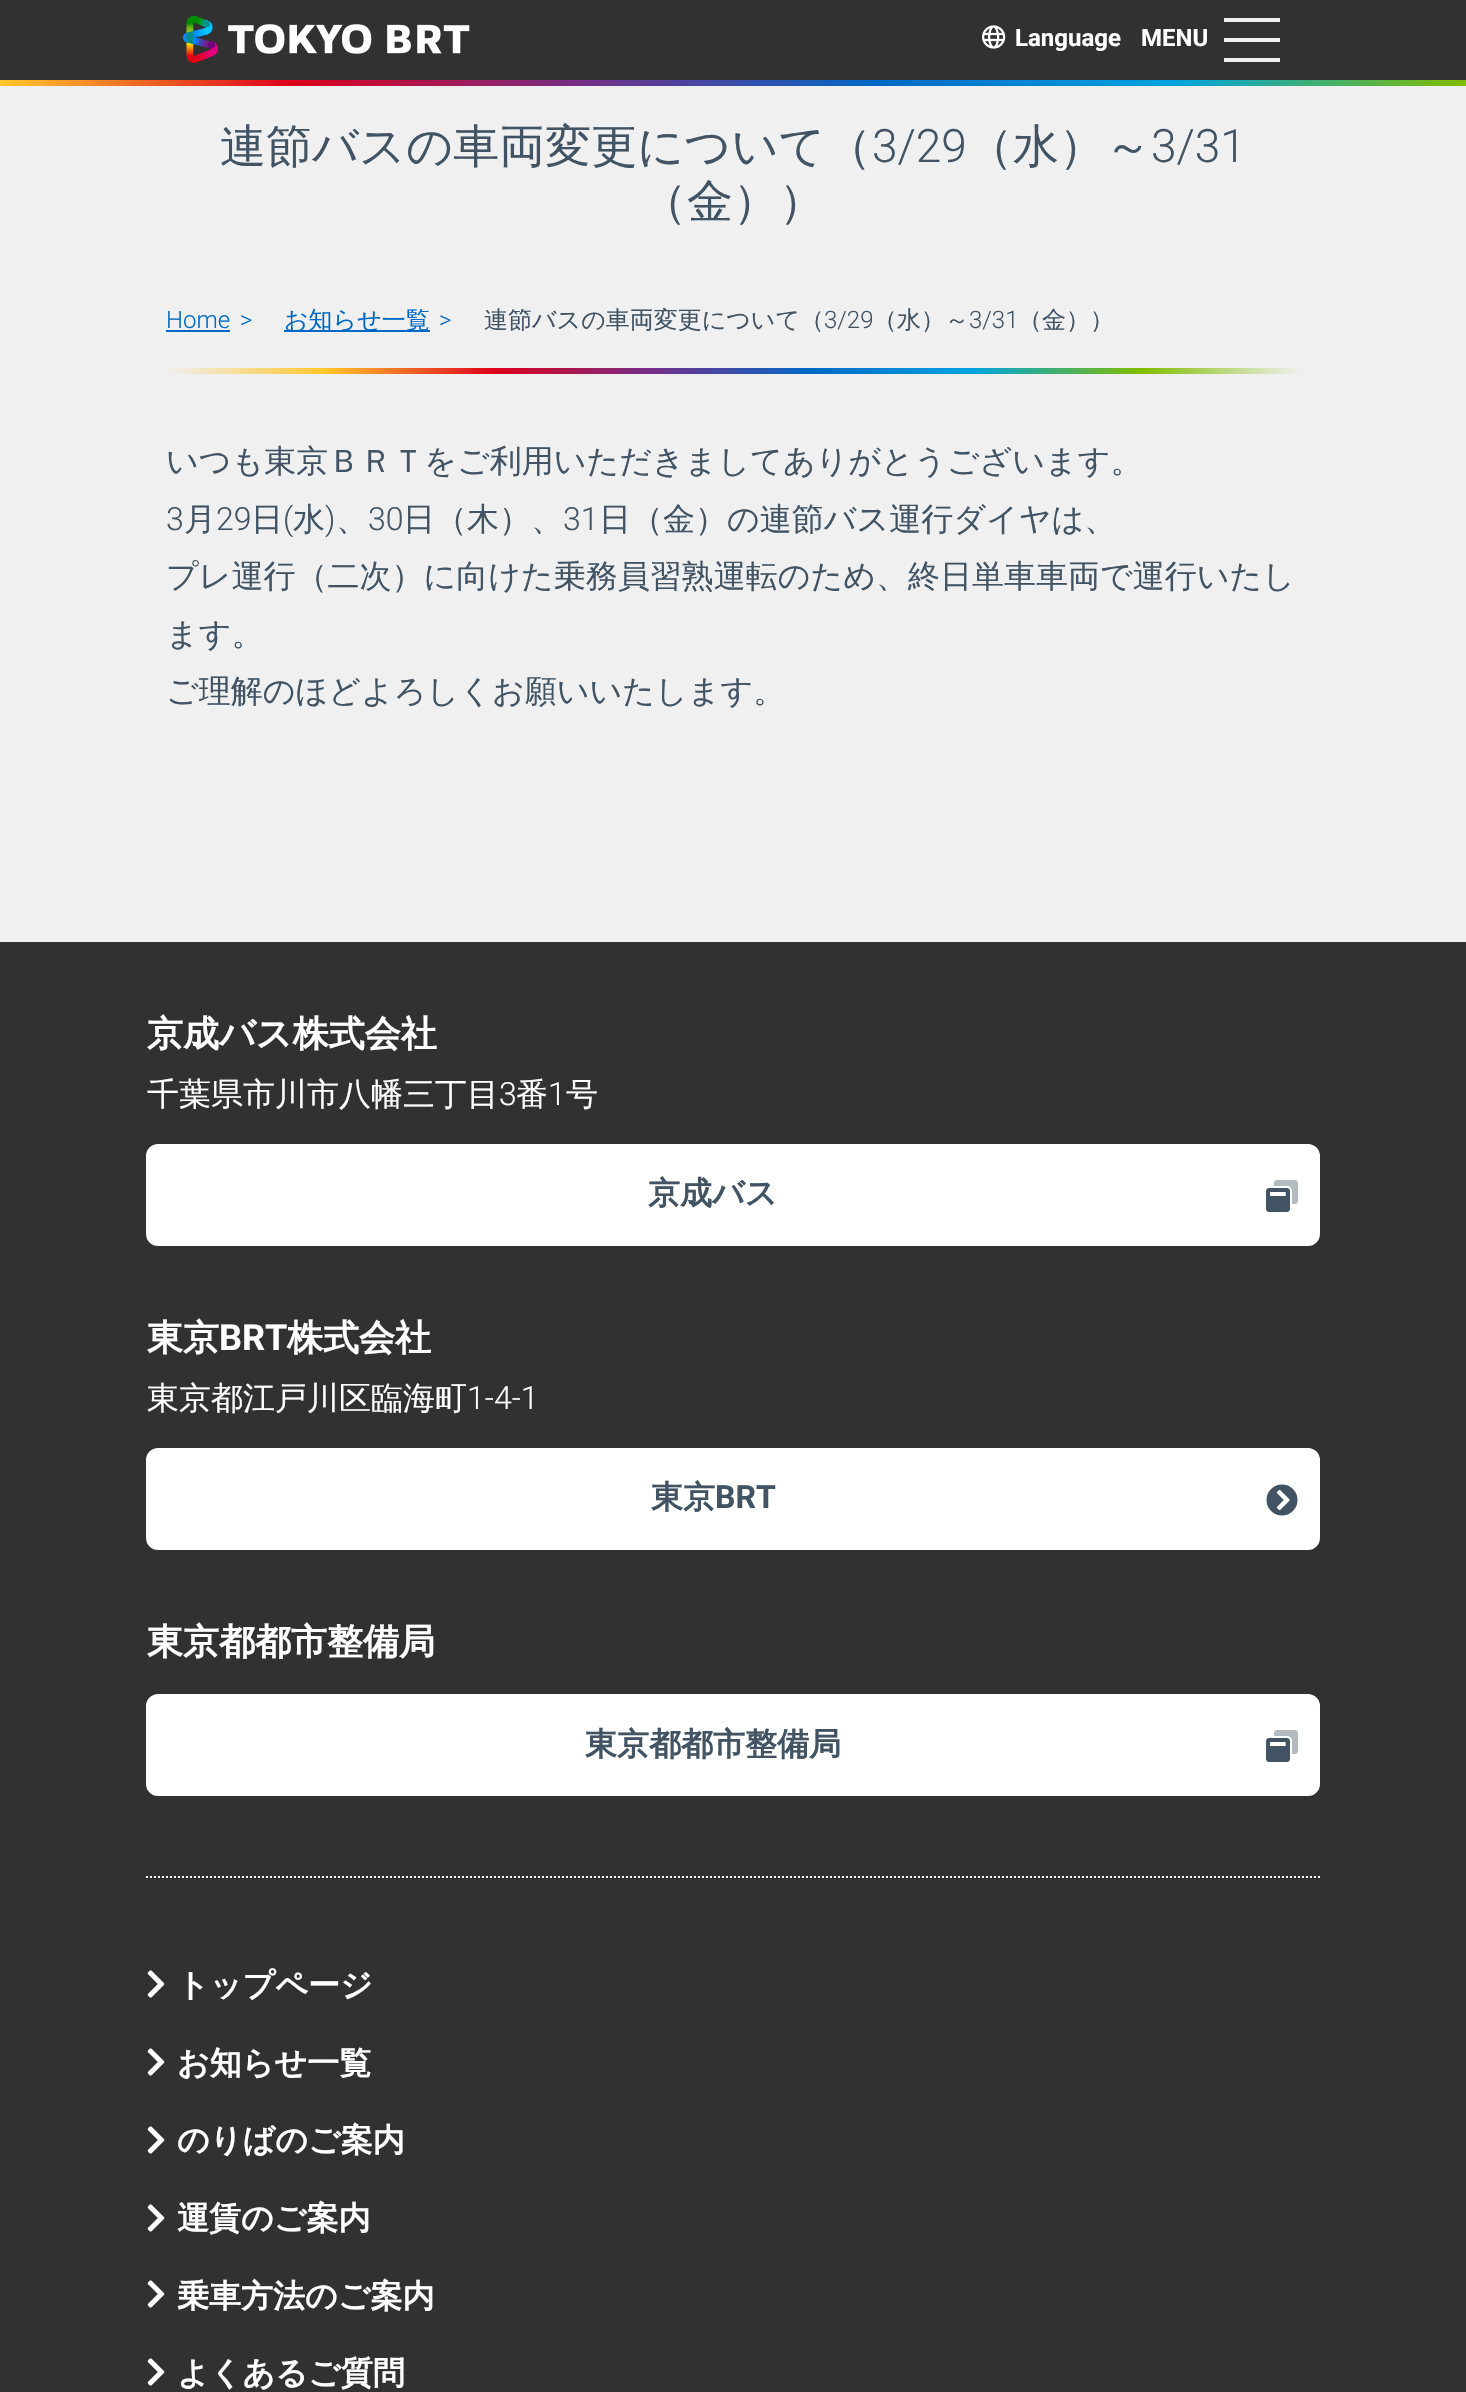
void draw(SkCanvas* canvas) {
	SkPaint fill;
	fill.setAntiAlias(true);
	auto makeFont = [&](const char* family, int weight, float size, bool italic = false) {
		SkFontStyle style(weight, SkFontStyle::kNormal_Width,
			italic ? SkFontStyle::kItalic_Slant : SkFontStyle::kUpright_Slant);
		SkFont result(fontMgr->matchFamilyStyle(family, style), size);
		result.setSubpixel(true);
		return result;
	};
	auto text = [&](const char* s, float x, float y, const SkFont& font) {
		canvas->drawString(s, x, y, font, fill);
	};
	auto box = [&](float l, float t, float r, float b) {
		canvas->drawRect(SkRect::MakeLTRB(l, t, r, b), fill);
	};
	auto picture = [&](const char* path, float l, float t, float r, float b) {
		auto image = SkImages::DeferredFromEncodedData(SkData::MakeFromFileName(path));
		canvas->drawImageRect(image, SkRect::MakeLTRB(l, t, r, b), SkSamplingOptions());
	};
	canvas->clear(0xFFF0F0F0);
	fill.setColor(0xFF313131);
	box(0, 0, 1466, 80);
	picture("image0.png", 182, 15, 470, 63);
	picture("image1.png", 982, 25, 1006, 49);
	fill.setColor(0xFFEEEEEE);
	box(1224, 18, 1280, 22);
	box(1224, 38, 1280, 42);
	box(1224, 58, 1280, 62);
	{
		const SkColor colors[] = {0xFFFFC72C, 0xFFDD001C, 0xFF73308A, 0xFF0069C7, 0xFF00A3E0, 0xFF81BC00};
		const float stops[] = {0, 0.2f, 0.4f, 0.6f, 0.8f, 1};
		const SkPoint ends[] = {{0, 83}, {1466, 83}};
		fill.setShader(SkGradientShader::MakeLinear(ends, colors, stops, 6, SkTileMode::kClamp));
		fill.setAlpha(255);
	}
	box(0, 80, 1466, 86);
	fill.setShader(nullptr);
	fill.setColor(0xFF0069C7);
	box(166, 330, 230, 332);
	box(284, 330, 430, 332);
	{
		const SkColor colors[] = {0xFFF0F0F0, 0xFFFFC72C, 0xFFDD001C, 0xFF73308A, 0xFF0069C7, 0xFF00A3E0, 0xFF81BC00, 0xFFF0F0F0};
		const float stops[] = {0, 0.14f, 0.29f, 0.43f, 0.57f, 0.71f, 0.86f, 1};
		const SkPoint ends[] = {{166, 371}, {1300, 371}};
		fill.setShader(SkGradientShader::MakeLinear(ends, colors, stops, 8, SkTileMode::kClamp));
		fill.setAlpha(255);
	}
	box(166, 368, 1300, 374);
	fill.setShader(nullptr);
	fill.setColor(0xFF313131);
	box(0, 942, 1466, 2392);
	fill.setColor(0xFFFFFFFF);
	canvas->drawRoundRect(SkRect::MakeLTRB(147, 1145, 1319, 1245), 11, 11, fill);
	fill.setStyle(SkPaint::kStroke_Style);
	fill.setStrokeWidth(2);
	canvas->drawRoundRect(SkRect::MakeLTRB(147, 1145, 1319, 1245), 11, 11, fill);
	picture("image3.png", 1266, 1188, 1290, 1212);
	picture("image2.png", 1274, 1180, 1298, 1204);
	fill.setStyle(SkPaint::kFill_Style);
	canvas->drawRoundRect(SkRect::MakeLTRB(147, 1449, 1319, 1549), 11, 11, fill);
	fill.setStyle(SkPaint::kStroke_Style);
	canvas->drawRoundRect(SkRect::MakeLTRB(147, 1449, 1319, 1549), 11, 11, fill);
	picture("image4.png", 1266, 1484, 1298, 1516);
	fill.setStyle(SkPaint::kFill_Style);
	canvas->drawRoundRect(SkRect::MakeLTRB(147, 1695, 1319, 1795), 11, 11, fill);
	fill.setStyle(SkPaint::kStroke_Style);
	canvas->drawRoundRect(SkRect::MakeLTRB(147, 1695, 1319, 1795), 11, 11, fill);
	picture("image3.png", 1266, 1738, 1290, 1762);
	picture("image2.png", 1274, 1730, 1298, 1754);
	fill.setPathEffect(SkDashPathEffect::Make({{2, 2}}, 0));
	canvas->drawPath(SkPathBuilder().moveTo(146, 1877).lineTo(1320, 1877).detach(), fill);
	fill.setPathEffect(nullptr);
	picture("image5.png", 147, 1970, 165, 1998);
	picture("image5.png", 147, 2048, 165, 2076);
	picture("image5.png", 147, 2126, 165, 2154);
	picture("image5.png", 147, 2204, 165, 2232);
	picture("image5.png", 147, 2280, 165, 2308);
	picture("image5.png", 147, 2358, 165, 2386);
	auto font1 = makeFont("Roboto", 700, 24);
	fill.setStyle(SkPaint::kFill_Style);
	text("Language", 1015, 46, font1);
	text("MENU", 1141, 46, font1);
	auto font2 = makeFont("WenQuanYi Zen Hei", 500, 46);
	fill.setColor(0xFF425464);
	text("連節バスの車両変更について（", 220, 162, font2);
	auto font3 = makeFont("Roboto", 300, 46);
	text("3/29", 872, 162, font3);
	text("（水）～", 967, 162, font2);
	text("3/31", 1151, 162, font3);
	text("（金））", 641, 217, font2);
	auto font4 = makeFont("Roboto", 300, 24);
	fill.setColor(0xFF0069C7);
	text("Home", 166, 328, font4);
	text(">", 240, 328, font4);
	auto font5 = makeFont("WenQuanYi Zen Hei", 500, 24);
	text("お知らせ一覧", 284, 328, font5);
	text(">", 439, 328, font4);
	fill.setColor(0xFF425464);
	text("連節バスの車両変更について（", 484, 328, font5);
	text("3/29", 824, 328, font4);
	text("（水）～", 873, 328, font5);
	text("3/31", 969, 328, font4);
	text("（金））", 1018, 328, font5);
	auto font6 = makeFont("WenQuanYi Zen Hei", 500, 32);
	text("いつも東京ＢＲＴをご利用いただきましてありがとうございます。", 166, 472, font6);
	auto font7 = makeFont("Roboto", 300, 32);
	text("3", 166, 530, font7);
	text("月", 184, 530, font6);
	text("29", 216, 530, font7);
	text("日", 251, 530, font6);
	text("(", 283, 530, font7);
	text("水", 293, 530, font6);
	text(")", 325, 530, font7);
	text("、", 336, 530, font6);
	text("30", 368, 530, font7);
	text("日（木）、", 403, 530, font6);
	text("31", 563, 530, font7);
	text("日（金）の連節バス運行ダイヤは、", 599, 530, font6);
	text("プレ運行（二次）に向けた乗務員習熟運転のため、終日単車車両で運行いたし", 166, 587, font6);
	text("ます。", 166, 645, font6);
	text("ご理解のほどよろしくお願いいたします。", 166, 702, font6);
	auto font8 = makeFont("WenQuanYi Zen Hei", 700, 36);
	fill.setColor(0xFFFFFFFF);
	text("京成バス株式会社", 147, 1046, font8);
	text("千葉県市川市八幡三丁目", 147, 1105, font6);
	text("3", 499, 1105, font7);
	text("番", 516, 1105, font6);
	text("1", 548, 1105, font7);
	text("号", 566, 1105, font6);
	auto font9 = makeFont("WenQuanYi Zen Hei", 700, 32);
	fill.setColor(0xFF425464);
	text("京成バス", 648, 1204, font9);
	fill.setColor(0xFFFFFFFF);
	text("東京", 147, 1350, font8);
	auto font10 = makeFont("Roboto", 700, 36);
	text("BRT", 219, 1350, font10);
	text("株式会社", 287, 1350, font8);
	text("東京都江戸川区臨海町", 147, 1409, font6);
	text("1-4-1", 467, 1409, font7);
	fill.setColor(0xFF425464);
	text("東京", 651, 1508, font9);
	auto font11 = makeFont("Roboto", 700, 32);
	text("BRT", 715, 1508, font11);
	fill.setColor(0xFFFFFFFF);
	text("東京都都市整備局", 147, 1654, font8);
	fill.setColor(0xFF425464);
	text("東京都都市整備局", 585, 1755, font9);
	fill.setColor(0xFFFFFFFF);
	text("トップページ", 177, 1996, font9);
	text("お知らせ一覧", 177, 2074, font9);
	text("のりばのご案内", 177, 2151, font9);
	text("運賃のご案内", 177, 2229, font9);
	text("乗車方法のご案内", 177, 2307, font9);
	text("よくあるご質問", 177, 2384, font9);
}
